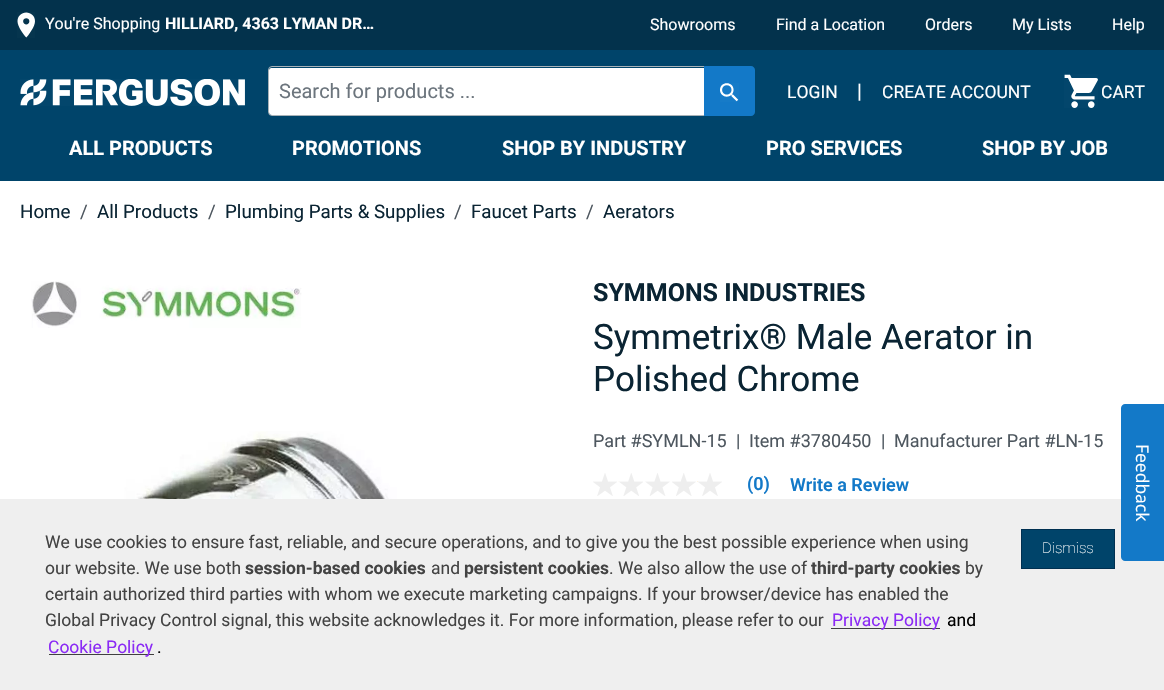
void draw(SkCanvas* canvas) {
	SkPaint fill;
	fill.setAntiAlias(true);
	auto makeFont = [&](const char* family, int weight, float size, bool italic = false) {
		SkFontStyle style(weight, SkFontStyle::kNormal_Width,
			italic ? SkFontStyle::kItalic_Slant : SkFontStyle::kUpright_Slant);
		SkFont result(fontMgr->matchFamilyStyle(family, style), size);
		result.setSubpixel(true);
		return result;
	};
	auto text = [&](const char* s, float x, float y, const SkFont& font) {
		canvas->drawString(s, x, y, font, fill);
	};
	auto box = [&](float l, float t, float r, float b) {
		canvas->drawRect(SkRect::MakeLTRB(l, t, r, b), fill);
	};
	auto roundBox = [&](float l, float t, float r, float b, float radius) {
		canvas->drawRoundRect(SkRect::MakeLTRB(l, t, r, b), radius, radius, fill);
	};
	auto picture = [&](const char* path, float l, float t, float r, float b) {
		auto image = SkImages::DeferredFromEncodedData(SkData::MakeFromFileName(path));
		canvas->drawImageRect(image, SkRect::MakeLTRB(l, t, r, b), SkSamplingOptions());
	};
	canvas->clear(0xFFFFFFFF);
	fill.setColor(0xFF03324C);
	box(0, 0, 1164, 50);
	picture("image0.png", 17, 12, 35, 38);
	fill.setColor(0xFF00446A);
	box(0, 50, 1164, 181);
	picture("image1.png", 20, 79, 245, 106);
	fill.setColor(0xFFFFFFFF);
	roundBox(269, 68, 731, 115, 2.5f);
	fill.setStyle(SkPaint::kStroke_Style);
	fill.setStrokeWidth(1);
	fill.setColor(0xFFA8B2B8);
	canvas->drawRoundRect(SkRect::MakeLTRB(268.5f, 66.5f, 732.5f, 115.5f), 3.5f, 3.5f, fill);
	fill.setStyle(SkPaint::kFill_Style);
	fill.setColor(0xFF1379C8);
	canvas->drawPath(SkPathBuilder().moveTo(704, 66).lineTo(751, 66).cubicTo(753, 66, 755, 68, 755, 70).lineTo(755, 112).cubicTo(755, 114, 753, 116, 751, 116).lineTo(704, 116).close().detach(), fill);
	picture("image2.png", 720, 83, 739, 102);
	picture("image3.png", 1064, 74, 1098, 108);
	picture("image4.png", 31, 281, 302, 328);
	picture("image5.png", 96, 431, 430, 499);
	picture("image6.png", 593, 473, 617, 496);
	picture("image7.png", 618, 473, 643, 496);
	picture("image8.png", 645, 473, 670, 496);
	picture("image9.png", 672, 473, 696, 496);
	picture("image10.png", 697, 473, 722, 496);
	fill.setColor(0xFFEFEFEF);
	box(0, 499, 1164, 690);
	fill.setColor(0xFF1379C8);
	canvas->drawPath(SkPathBuilder().moveTo(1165, 404).lineTo(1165, 561).lineTo(1125, 561).cubicTo(1123, 561, 1121, 559, 1121, 557).lineTo(1121, 408).cubicTo(1121, 406, 1123, 404, 1125, 404).close().detach(), fill);
	fill.setColor(0xFF404040);
	box(831, 628, 940, 629);
	box(49, 654, 154, 655);
	fill.setColor(0xFF00446A);
	canvas->drawRect(SkRect::MakeLTRB(1021.5f, 529.5f, 1114.5f, 568.5f), fill);
	fill.setStyle(SkPaint::kStroke_Style);
	fill.setColor(0xFF003051);
	canvas->drawRect(SkRect::MakeLTRB(1021.5f, 529.5f, 1114.5f, 568.5f), fill);
	auto font1 = makeFont("Roboto", 400, 16);
	fill.setStyle(SkPaint::kFill_Style);
	fill.setColor(0xFFFFFFFF);
	text("You're Shopping", 45, 29, font1);
	auto font2 = makeFont("Roboto", 700, 16);
	text("HILLIARD, 4363 LYMAN DR…", 165, 29, font2);
	text("Showrooms", 650, 30, font1);
	text("Find a Location", 776, 30, font1);
	text("Orders", 925, 30, font1);
	text("My Lists", 1012, 30, font1);
	text("Help", 1112, 30, font1);
	auto font3 = makeFont("Roboto", 400, 20);
	fill.setColor(0xFF6C757D);
	text("Search for products ...", 279, 98, font3);
	auto font4 = makeFont("Roboto", 400, 17.5f);
	fill.setColor(0xFFFFFFFF);
	text("LOGIN", 787, 98, font4);
	text("|", 857, 98, font3);
	text("CREATE ACCOUNT", 882, 98, font4);
	text("CART", 1101, 98, font4);
	auto font5 = makeFont("Roboto", 700, 20);
	text("ALL PRODUCTS", 69, 155, font5);
	text("PROMOTIONS", 292, 155, font5);
	text("SHOP BY INDUSTRY", 502, 155, font5);
	text("PRO SERVICES", 766, 155, font5);
	text("SHOP BY JOB", 982, 155, font5);
	auto font6 = makeFont("Roboto", 400, 18.75f);
	fill.setColor(0xFF0A2433);
	text("Home", 20, 218, font6);
	fill.setColor(0xFF4E575F);
	text("/", 80, 218, font6);
	fill.setColor(0xFF0A2433);
	text("All Products", 97, 218, font6);
	fill.setColor(0xFF4E575F);
	text("/", 208, 218, font6);
	fill.setColor(0xFF0A2433);
	text("Plumbing Parts & Supplies", 225, 218, font6);
	fill.setColor(0xFF4E575F);
	text("/", 454, 218, font6);
	fill.setColor(0xFF0A2433);
	text("Faucet Parts", 471, 218, font6);
	fill.setColor(0xFF4E575F);
	text("/", 586, 218, font6);
	fill.setColor(0xFF0A2433);
	text("Aerators", 603, 218, font6);
	auto font7 = makeFont("Roboto", 700, 25);
	text("SYMMONS INDUSTRIES", 593, 301, font7);
	auto font8 = makeFont("Roboto", 400, 35);
	text("Symmetrix® Male Aerator in", 593, 349, font8);
	text("Polished Chrome", 593, 391, font8);
	auto font9 = makeFont("Roboto", 400, 18);
	fill.setColor(0xFF4E575F);
	text("Part #SYMLN-15", 593, 447, font9);
	text("|", 736, 447, font9);
	text("Item #3780450", 749, 447, font9);
	text("|", 881, 447, font9);
	text("Manufacturer Part #LN-15", 894, 447, font9);
	auto font10 = makeFont("Roboto", 600, 18);
	fill.setColor(0xFF1379C8);
	text("(0)", 747, 490, font10);
	text("Write a Review", 790, 491, font10);
	auto font11 = makeFont("Open Sans", 400, 17.5f);
	fill.setColor(0xFFFFFFFF);
	canvas->save();
	canvas->rotate(90, 1136, 444);
	text("Feedback", 1136, 444, font11);
	canvas->restore();
	fill.setColor(0xFF434343);
	text("We use cookies to ensure fast, reliable, and secure operations, and to give you the best possible experience when using", 45, 548, font4);
	text("our website. We use both", 45, 574, font4);
	auto font12 = makeFont("Roboto", 700, 17.5f);
	text("session-based cookies", 245, 574, font12);
	text("and", 431, 574, font4);
	text("persistent cookies", 464, 574, font12);
	text(". We also allow the use of", 609, 574, font4);
	text("third-party cookies", 811, 574, font12);
	text("by", 965, 574, font4);
	text("certain authorized third parties with whom we execute marketing campaigns. If your browser/device has enabled the", 45, 600, font4);
	text("Global Privacy Control signal, this website acknowledges it. For more information, please refer to our", 45, 626, font4);
	fill.setColor(0xFF8B2AF5);
	text("Privacy Policy", 832, 626, font4);
	fill.setColor(0xFF000000);
	text("and", 947, 626, font4);
	fill.setColor(0xFF8B2AF5);
	text("Cookie Policy", 48, 653, font4);
	fill.setColor(0xFF000000);
	text(".", 157, 653, font4);
	auto font13 = makeFont("Roboto", 100, 15);
	fill.setColor(0xFFFFFFFF);
	text("Dismiss", 1042, 553, font13);
}
